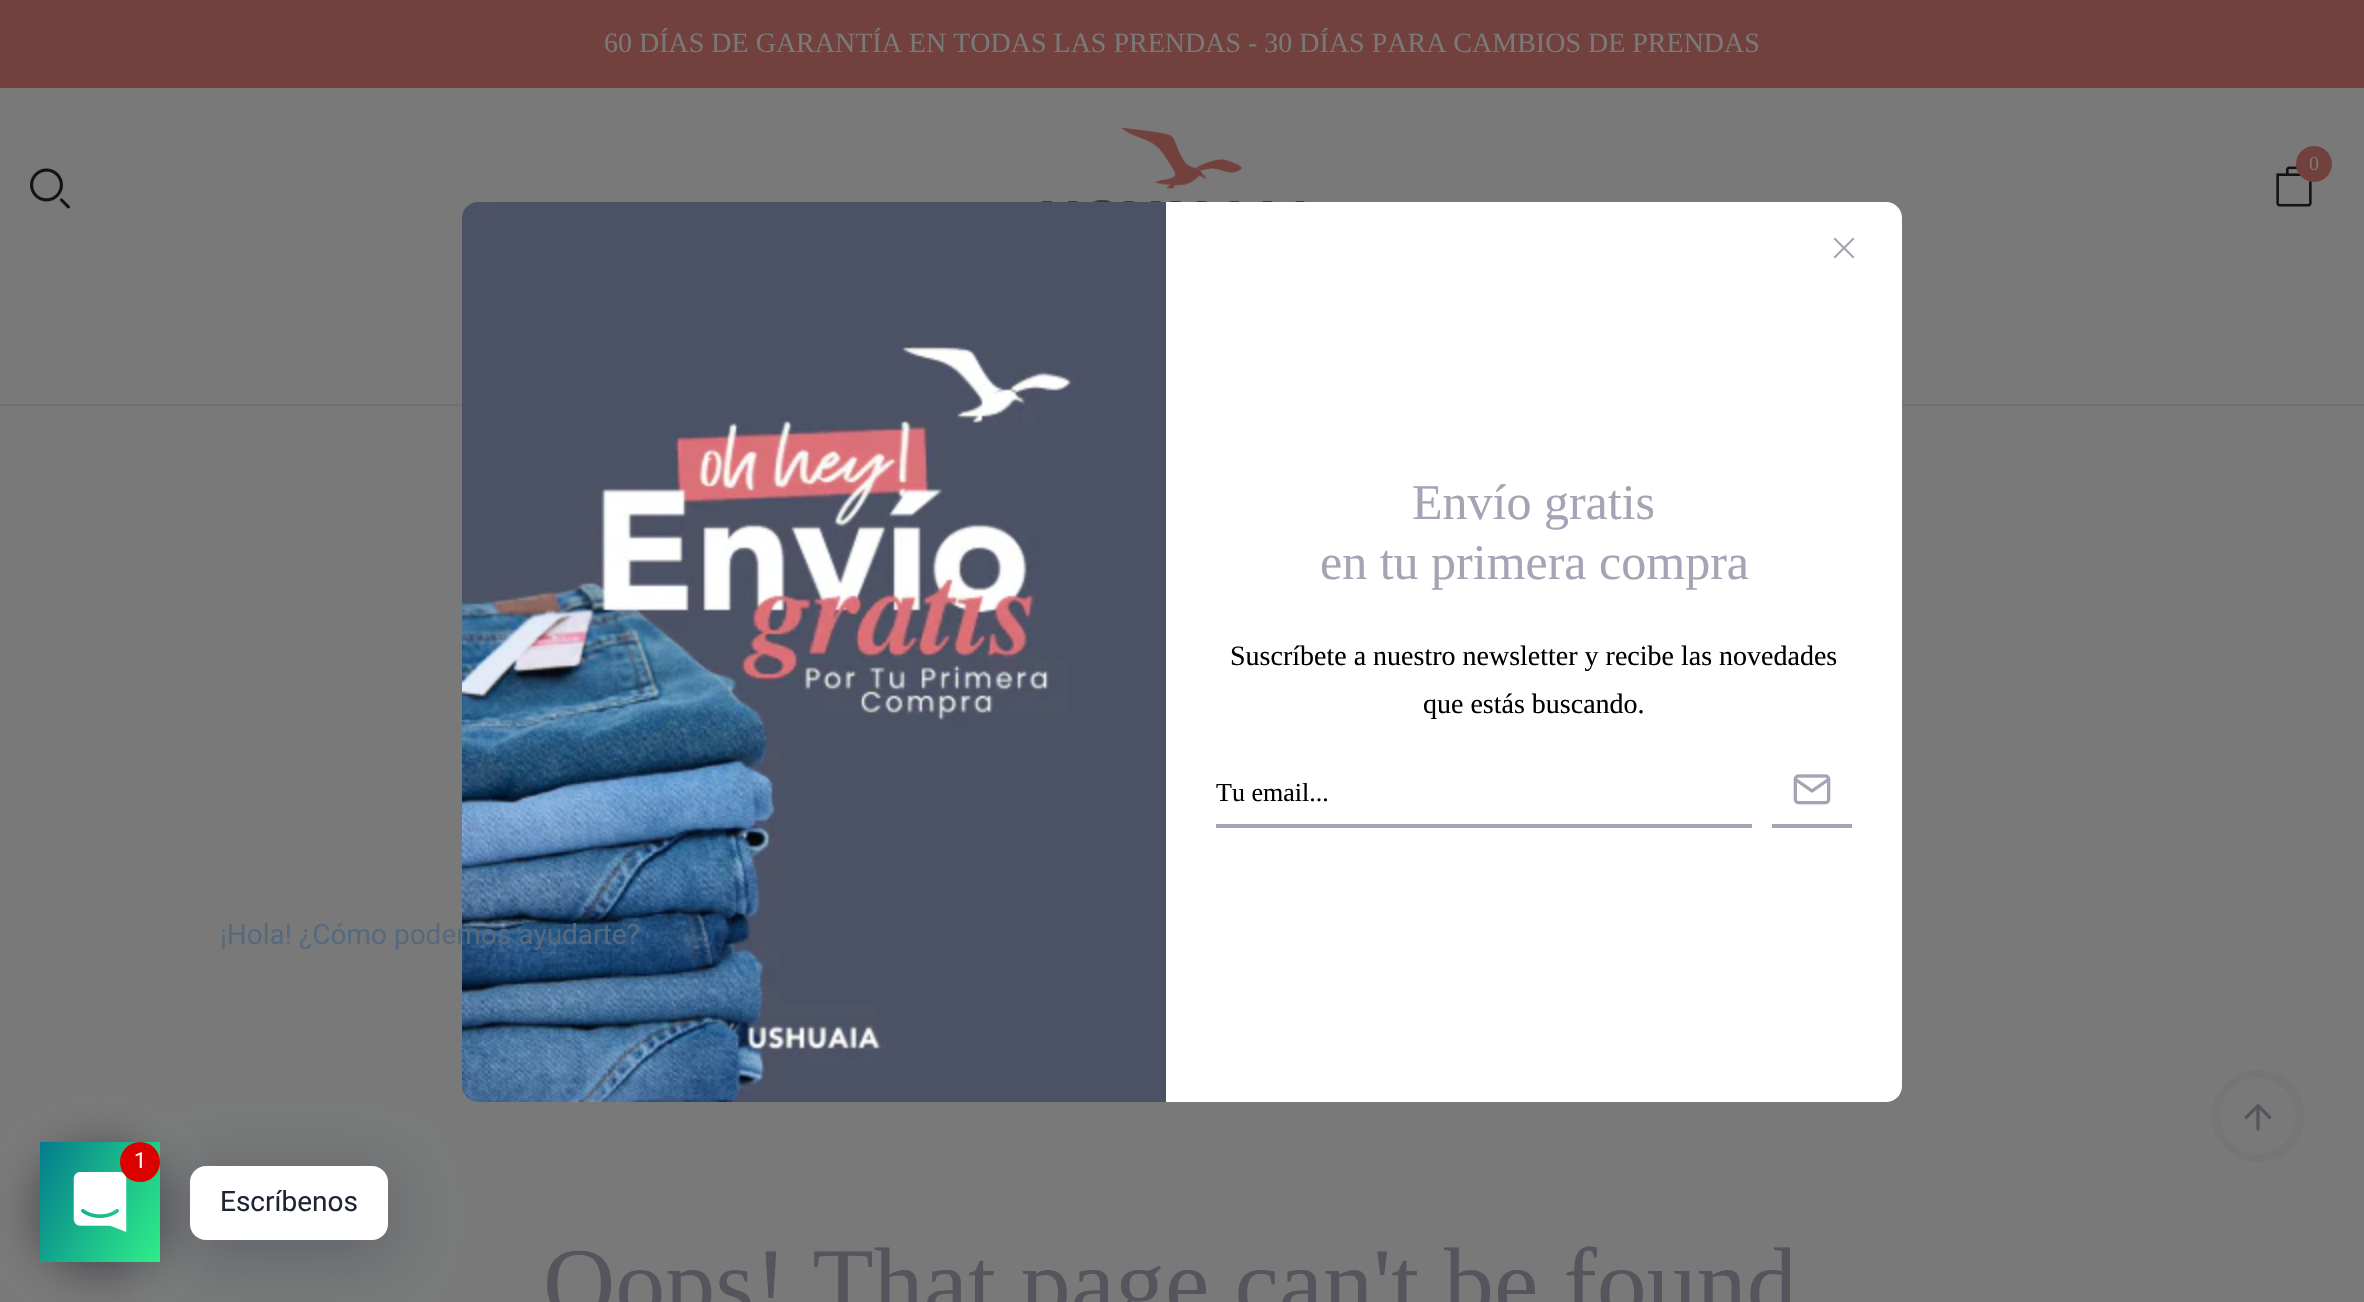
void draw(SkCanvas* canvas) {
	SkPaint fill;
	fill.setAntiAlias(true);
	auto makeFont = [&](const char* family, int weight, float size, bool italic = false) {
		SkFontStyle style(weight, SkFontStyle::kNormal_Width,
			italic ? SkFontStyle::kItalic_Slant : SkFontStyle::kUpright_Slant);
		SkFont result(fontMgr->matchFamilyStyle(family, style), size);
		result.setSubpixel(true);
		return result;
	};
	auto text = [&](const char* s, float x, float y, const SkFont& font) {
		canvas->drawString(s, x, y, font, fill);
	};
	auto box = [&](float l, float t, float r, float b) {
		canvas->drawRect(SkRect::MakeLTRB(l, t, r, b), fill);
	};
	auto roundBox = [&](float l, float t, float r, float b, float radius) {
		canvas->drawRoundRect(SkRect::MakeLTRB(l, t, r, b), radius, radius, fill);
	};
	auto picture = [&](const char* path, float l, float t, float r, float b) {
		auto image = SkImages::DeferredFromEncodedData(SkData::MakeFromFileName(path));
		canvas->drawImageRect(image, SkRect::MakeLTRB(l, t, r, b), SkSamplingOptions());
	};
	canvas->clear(0xFF797979);
	fill.setColor(0xFF72413D);
	box(0, 0, 2364, 88);
	fill.setColor(0xFF707070);
	box(0, 404, 2364, 406);
	picture("image0.png", 1042, 128, 1305, 202);
	picture("image1.png", 2276, 166, 2312, 207);
	fill.setColor(0xFF72413D);
	canvas->drawCircle(2314, 164, 18, fill);
	picture("image2.png", 30, 168, 70, 209);
	picture("image3.png", 462, 202, 1166, 1102);
	fill.setColor(0xFFFFFFFF);
	canvas->drawPath(SkPathBuilder().moveTo(1166, 202).lineTo(1886, 202).cubicTo(1895, 202, 1902, 209, 1902, 218).lineTo(1902, 1086).cubicTo(1902, 1095, 1895, 1102, 1886, 1102).lineTo(1166, 1102).close().detach(), fill);
	fill.setColor(0xFFA7A3B5);
	canvas->drawPath(SkPathBuilder().moveTo(1833.5f, 257).lineTo(1853, 237.5f).lineTo(1854.5f, 239).lineTo(1835, 258.5f).close().detach(), fill);
	canvas->drawPath(SkPathBuilder().moveTo(1835, 237.5f).lineTo(1854.5f, 257).lineTo(1853, 258.5f).lineTo(1833.5f, 239).close().detach(), fill);
	box(1216, 824, 1752, 828);
	box(1772, 824, 1852, 828);
	picture("image4.png", 1793, 774, 1831, 805);
	fill.setColor(0x80020610);
	fill.setMaskFilter(SkMaskFilter::MakeBlur(kNormal_SkBlurStyle, 24));
	canvas->drawRoundRect(SkRect::MakeLTRB(40, 1150, 160, 1270), 60, 60, fill);
	fill.setMaskFilter(nullptr);
	{
		const SkColor colors[] = {0xFF047C8D, 0xFF2FF289};
		const float stops[] = {0, 1};
		const SkPoint ends[] = {{28, 1168}, {172, 1236}};
		fill.setShader(SkGradientShader::MakeLinear(ends, colors, stops, 2, SkTileMode::kClamp));
		fill.setAlpha(255);
	}
	box(40, 1142, 160, 1262);
	fill.setShader(nullptr);
	fill.setColor(0x3D00122E);
	fill.setMaskFilter(SkMaskFilter::MakeBlur(kNormal_SkBlurStyle, 32));
	canvas->drawRoundRect(SkRect::MakeLTRB(190, 1178, 388, 1252), 16, 16, fill);
	fill.setMaskFilter(nullptr);
	picture("image5.png", 73, 1172, 127, 1232);
	fill.setColor(0xFFDD0000);
	canvas->drawCircle(140, 1162, 20, fill);
	fill.setColor(0xFFFFFFFF);
	roundBox(190, 1166, 388, 1240, 16);
	fill.setStyle(SkPaint::kStroke_Style);
	fill.setStrokeWidth(8);
	fill.setColor(0xFF757575);
	canvas->drawCircle(2258, 1116, 42, fill);
	picture("image6.png", 2244, 1104, 2272, 1131);
	auto font1 = makeFont("Liberation Serif", 400, 28);
	fill.setStyle(SkPaint::kFill_Style);
	fill.setColor(0xFF797979);
	text("60 DÍAS DE GARANTÍA EN TODAS LAS PRENDAS - 30 DÍAS PARA CAMBIOS DE PRENDAS", 604, 52, font1);
	auto font2 = makeFont("Liberation Serif", 400, 20);
	text("0", 2309, 170, font2);
	auto font3 = makeFont("Liberation Serif", 400, 50);
	fill.setColor(0xFFA7A3B5);
	text("Envío gratis", 1412, 519, font3);
	text("en tu primera compra", 1320, 579, font3);
	fill.setColor(0xFF000000);
	text("Suscríbete a nuestro newsletter y recibe las novedades", 1230, 665, font1);
	text("que estás buscando.", 1423, 713, font1);
	auto font4 = makeFont("Liberation Serif", 400, 26);
	text("Tu email...", 1216, 801, font4);
	auto font5 = makeFont("Roboto", 400, 28);
	fill.setColor(0xFF576A7D);
	text("¡Hola! ¿Cómo podemos ayudarte?", 220, 944, font5);
	auto font6 = makeFont("Roboto", 400, 22);
	fill.setColor(0xFFFFFFFF);
	text("1", 134, 1168, font6);
	fill.setColor(0xFF1E2433);
	text("Escríbenos", 220, 1211, font5);
	auto font7 = makeFont("Liberation Serif", 400, 100);
	fill.setColor(0xFF56545C);
	text("Oops! That page can't be found", 543, 1317, font7);
}
